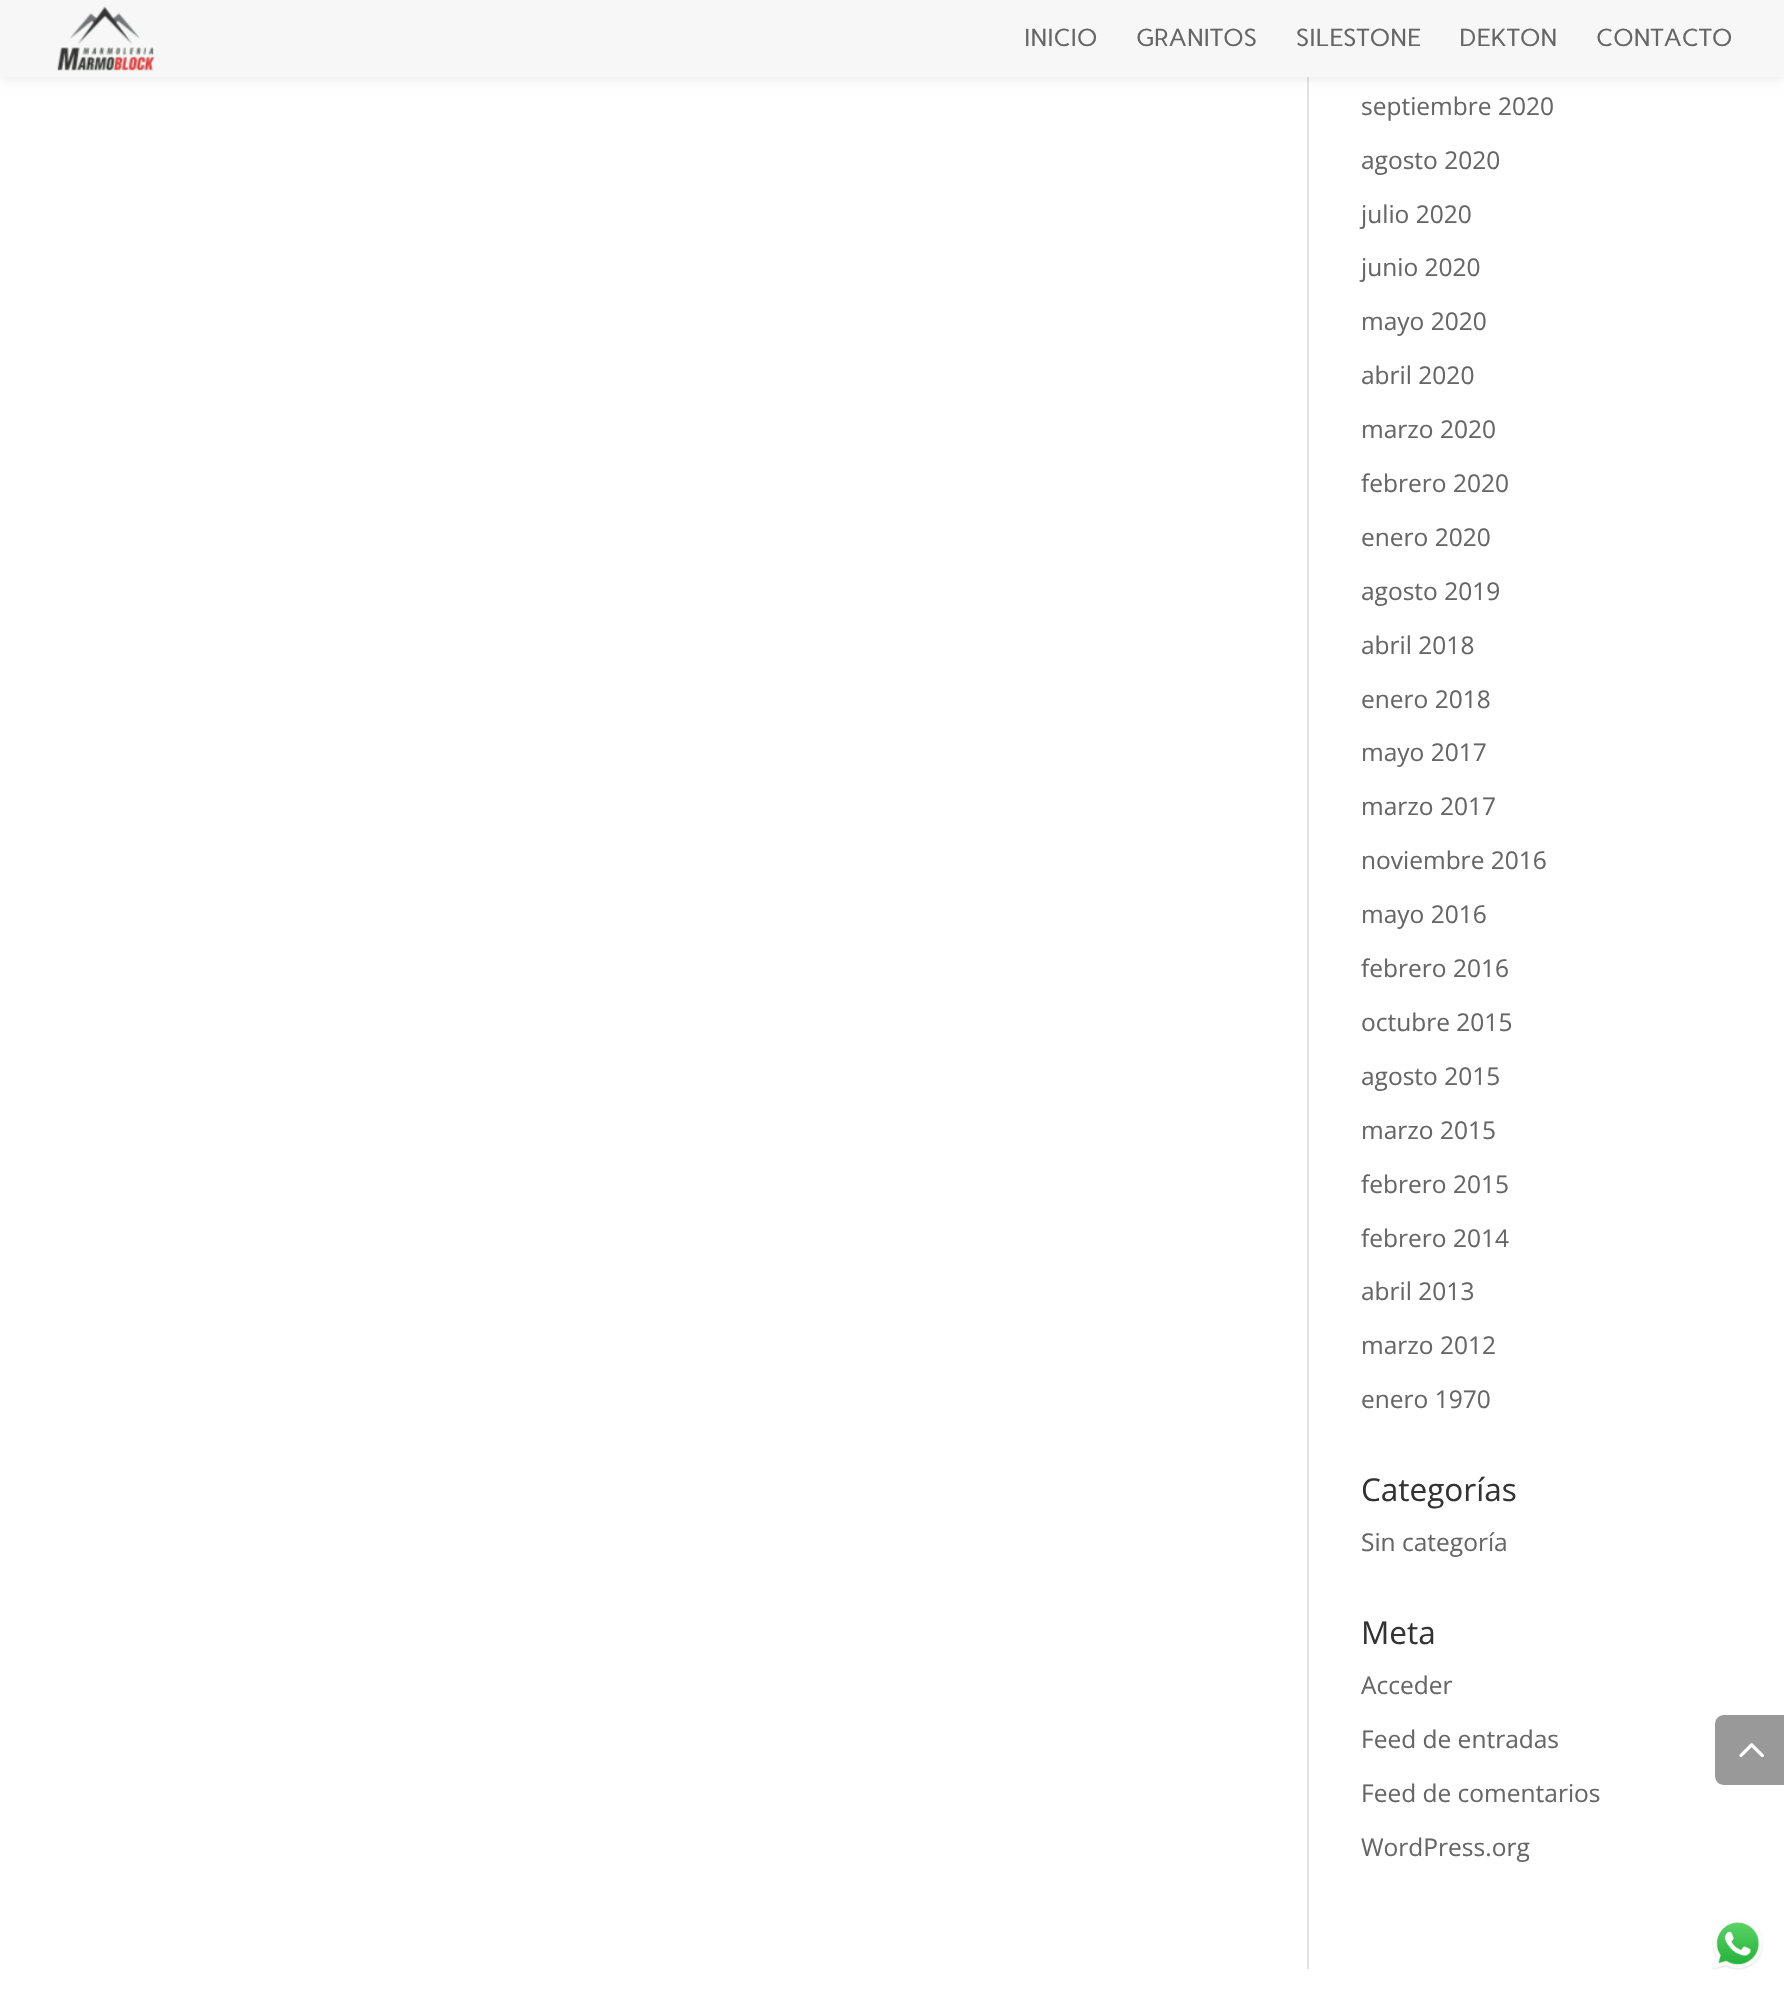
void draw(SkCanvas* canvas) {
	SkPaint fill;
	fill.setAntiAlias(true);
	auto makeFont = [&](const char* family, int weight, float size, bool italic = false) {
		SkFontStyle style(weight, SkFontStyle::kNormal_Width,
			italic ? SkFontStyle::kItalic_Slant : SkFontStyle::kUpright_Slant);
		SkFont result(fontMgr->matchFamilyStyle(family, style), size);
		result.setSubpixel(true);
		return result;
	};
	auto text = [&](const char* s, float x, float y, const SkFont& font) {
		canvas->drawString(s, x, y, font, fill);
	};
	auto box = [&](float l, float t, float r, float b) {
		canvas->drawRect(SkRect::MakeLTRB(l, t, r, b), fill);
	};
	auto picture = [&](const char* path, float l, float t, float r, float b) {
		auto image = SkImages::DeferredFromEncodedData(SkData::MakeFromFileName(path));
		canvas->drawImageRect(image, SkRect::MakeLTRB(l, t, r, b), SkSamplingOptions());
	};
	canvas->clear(0xFFFFFFFF);
	fill.setColor(0xFFE2E2E2);
	box(1307, 77, 1309, 1969);
	fill.setColor(0x1A000000);
	fill.setMaskFilter(SkMaskFilter::MakeBlur(kNormal_SkBlurStyle, 6));
	canvas->drawRect(SkRect::MakeLTRB(0, 0, 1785, 77), fill);
	fill.setMaskFilter(nullptr);
	fill.setColor(0xFFF7F7F7);
	box(0, 0, 1784, 77);
	picture("image0.png", 57, 6, 155, 71);
	fill.setColor(0xFF999999);
	canvas->drawPath(SkPathBuilder().moveTo(1724, 1715).lineTo(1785, 1715).lineTo(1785, 1785).lineTo(1724, 1785).cubicTo(1719, 1785, 1715, 1781, 1715, 1776).lineTo(1715, 1724).cubicTo(1715, 1719, 1719, 1715, 1724, 1715).close().detach(), fill);
	picture("image1.png", 1739, 1743, 1764, 1758);
	picture("image2.png", 1712, 1918, 1764, 1970);
	auto font1 = makeFont("Carme", 400, 24.5f);
	fill.setColor(0xFF666666);
	text("INICIO", 1024, 46, font1);
	text("GRANITOS", 1136, 46, font1);
	text("SILESTONE", 1296, 46, font1);
	text("DEKTON", 1459, 46, font1);
	text("CONTACTO", 1596, 46, font1);
	auto font2 = makeFont("Open Sans", 400, 24.5f);
	text("septiembre 2020", 1361, 115, font2);
	text("agosto 2020", 1361, 169, font2);
	text("julio 2020", 1361, 223, font2);
	text("junio 2020", 1361, 276, font2);
	text("mayo 2020", 1361, 330, font2);
	text("abril 2020", 1361, 384, font2);
	text("marzo 2020", 1361, 438, font2);
	text("febrero 2020", 1361, 492, font2);
	text("enero 2020", 1361, 546, font2);
	text("agosto 2019", 1361, 600, font2);
	text("abril 2018", 1361, 654, font2);
	text("enero 2018", 1361, 708, font2);
	text("mayo 2017", 1361, 761, font2);
	text("marzo 2017", 1361, 815, font2);
	text("noviembre 2016", 1361, 869, font2);
	text("mayo 2016", 1361, 923, font2);
	text("febrero 2016", 1361, 977, font2);
	text("octubre 2015", 1361, 1031, font2);
	text("agosto 2015", 1361, 1085, font2);
	text("marzo 2015", 1361, 1139, font2);
	text("febrero 2015", 1361, 1193, font2);
	text("febrero 2014", 1361, 1247, font2);
	text("abril 2013", 1361, 1300, font2);
	text("marzo 2012", 1361, 1354, font2);
	text("enero 1970", 1361, 1408, font2);
	auto font3 = makeFont("Open Sans", 400, 31.5f);
	fill.setColor(0xFF333333);
	text("Categorías", 1361, 1501, font3);
	fill.setColor(0xFF666666);
	text("Sin categoría", 1361, 1551, font2);
	fill.setColor(0xFF333333);
	text("Meta", 1361, 1644, font3);
	fill.setColor(0xFF666666);
	text("Acceder", 1361, 1694, font2);
	text("Feed de entradas", 1361, 1748, font2);
	text("Feed de comentarios", 1361, 1802, font2);
	text("WordPress.org", 1361, 1856, font2);
}
